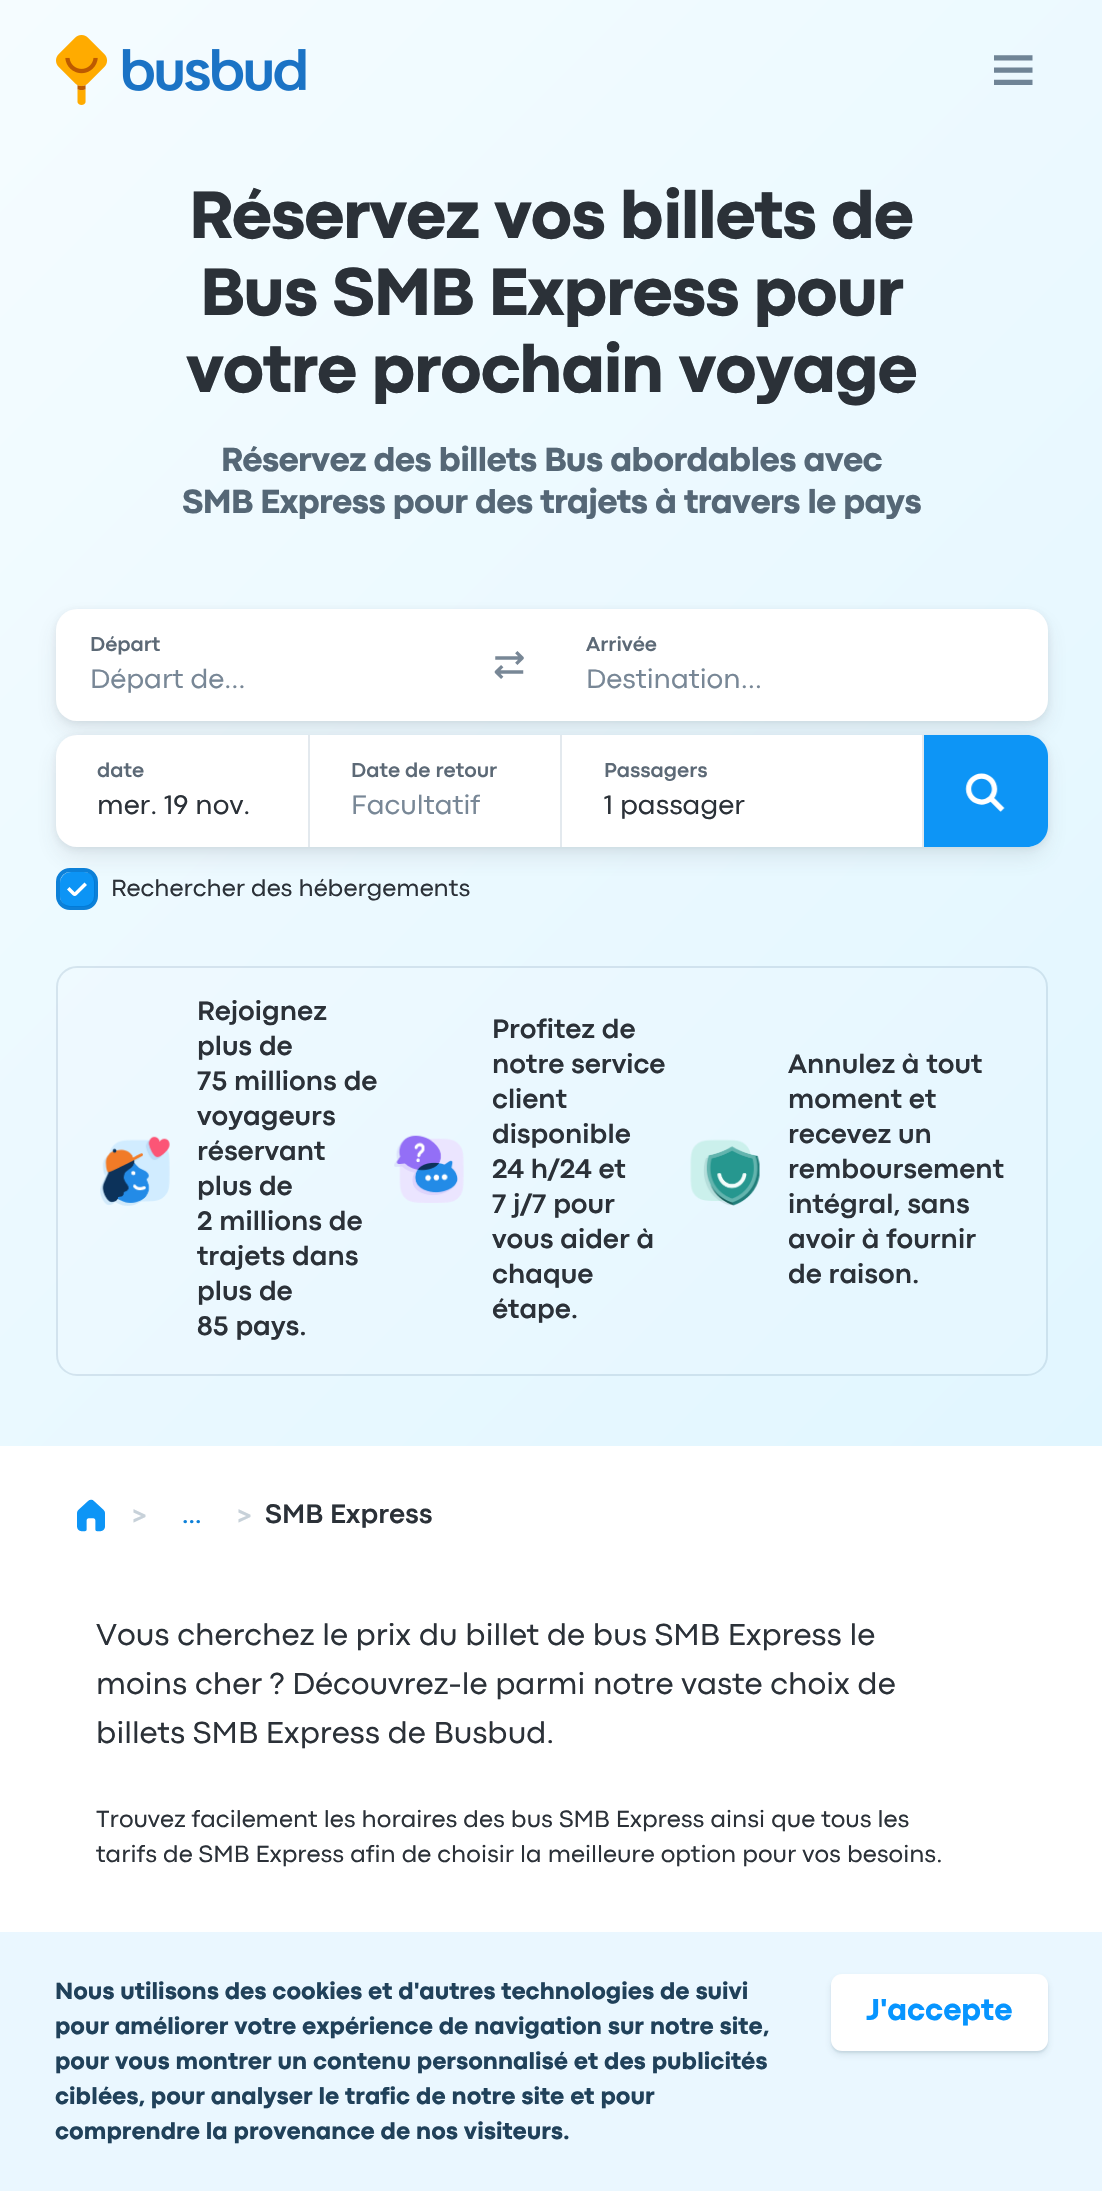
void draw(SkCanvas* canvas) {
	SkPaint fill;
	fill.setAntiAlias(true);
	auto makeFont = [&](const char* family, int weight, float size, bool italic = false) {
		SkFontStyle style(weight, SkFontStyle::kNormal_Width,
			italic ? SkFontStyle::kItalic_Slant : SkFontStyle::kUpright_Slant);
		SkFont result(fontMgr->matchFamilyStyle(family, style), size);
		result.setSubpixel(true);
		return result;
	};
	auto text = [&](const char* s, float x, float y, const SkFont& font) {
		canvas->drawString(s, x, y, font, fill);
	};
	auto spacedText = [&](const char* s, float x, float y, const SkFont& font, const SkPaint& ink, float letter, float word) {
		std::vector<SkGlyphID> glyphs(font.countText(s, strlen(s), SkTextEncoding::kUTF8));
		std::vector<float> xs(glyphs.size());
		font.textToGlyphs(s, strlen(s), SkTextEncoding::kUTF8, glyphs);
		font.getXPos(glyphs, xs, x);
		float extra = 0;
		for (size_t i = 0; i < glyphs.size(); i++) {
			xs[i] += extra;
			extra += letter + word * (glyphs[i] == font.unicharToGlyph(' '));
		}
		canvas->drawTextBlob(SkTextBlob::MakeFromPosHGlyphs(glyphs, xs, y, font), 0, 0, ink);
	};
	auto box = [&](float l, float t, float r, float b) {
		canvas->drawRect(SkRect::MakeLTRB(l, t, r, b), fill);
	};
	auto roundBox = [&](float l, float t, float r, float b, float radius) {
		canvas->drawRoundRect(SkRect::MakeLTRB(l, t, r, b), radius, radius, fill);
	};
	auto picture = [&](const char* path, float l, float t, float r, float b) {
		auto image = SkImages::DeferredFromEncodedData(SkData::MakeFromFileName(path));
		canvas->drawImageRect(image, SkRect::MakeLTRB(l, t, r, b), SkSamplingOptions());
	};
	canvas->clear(0xFFFFFFFF);
	{
		const SkColor colors[] = {0xFFF5FCFF, 0xFFE1F6FF};
		const float stops[] = {0, 1};
		const SkPoint ends[] = {{-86, 86}, {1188, 1360}};
		fill.setShader(SkGradientShader::MakeLinear(ends, colors, stops, 2, SkTileMode::kClamp));
		fill.setAlpha(255);
	}
	box(0, 0, 1102, 1446);
	picture("image0.png", 56, 35, 306, 105);
	picture("image1.png", 994, 55, 1033, 85);
	fill.setShader(nullptr);
	fill.setColor(0x1A434D56);
	fill.setMaskFilter(SkMaskFilter::MakeBlur(kNormal_SkBlurStyle, 10.5f));
	canvas->drawRoundRect(SkRect::MakeLTRB(56, 620, 1048, 732), 21, 21, fill);
	fill.setMaskFilter(nullptr);
	fill.setMaskFilter(SkMaskFilter::MakeBlur(kNormal_SkBlurStyle, 3.5f));
	canvas->drawRoundRect(SkRect::MakeLTRB(56, 611, 1048, 723), 21, 21, fill);
	fill.setMaskFilter(nullptr);
	fill.setColor(0xFFFFFFFF);
	roundBox(56, 609, 1048, 721, 21);
	picture("image2.png", 494, 651, 524, 679);
	fill.setColor(0x1A434D56);
	fill.setMaskFilter(SkMaskFilter::MakeBlur(kNormal_SkBlurStyle, 10.5f));
	canvas->drawRoundRect(SkRect::MakeLTRB(56, 746, 1048, 858), 21, 21, fill);
	fill.setMaskFilter(nullptr);
	fill.setMaskFilter(SkMaskFilter::MakeBlur(kNormal_SkBlurStyle, 3.5f));
	canvas->drawRoundRect(SkRect::MakeLTRB(56, 737, 1048, 849), 21, 21, fill);
	fill.setMaskFilter(nullptr);
	fill.setColor(0xFFFFFFFF);
	roundBox(56, 735, 1048, 847, 21);
	fill.setColor(0xFFE3E9EE);
	box(560, 735, 562, 847);
	box(308, 735, 310, 847);
	box(922, 735, 924, 847);
	fill.setColor(0xF2008FF5);
	canvas->drawPath(SkPathBuilder().moveTo(924, 735).lineTo(1027, 735).cubicTo(1038.5f, 735, 1048, 744.5f, 1048, 756).lineTo(1048, 826).cubicTo(1048, 837.5f, 1038.5f, 847, 1027, 847).lineTo(924, 847).close().detach(), fill);
	picture("image3.png", 965, 773, 1005, 812);
	fill.setColor(0xFF0C94F5);
	roundBox(60, 872, 95, 907, 11);
	fill.setStyle(SkPaint::kStroke_Style);
	fill.setStrokeWidth(4);
	fill.setColor(0xF20079D6);
	canvas->drawRoundRect(SkRect::MakeLTRB(58, 870, 96, 908), 12, 12, fill);
	picture("image4.png", 67, 882, 87, 896);
	fill.setStyle(SkPaint::kFill_Style);
	fill.setColor(0x1AFFFFFF);
	roundBox(56, 966, 1048, 1376, 21);
	fill.setStyle(SkPaint::kStroke_Style);
	fill.setStrokeWidth(2);
	fill.setColor(0x1C003666);
	canvas->drawRoundRect(SkRect::MakeLTRB(57, 967, 1047, 1375), 20, 20, fill);
	picture("image5.png", 100, 1136, 170, 1206);
	picture("image6.png", 394, 1135, 464, 1203);
	picture("image7.png", 690, 1139, 760, 1206);
	picture("image8.png", 77, 1499, 105, 1532);
	fill.setStyle(SkPaint::kFill_Style);
	fill.setColor(0xD9E6F6FF);
	box(0, 1932, 1102, 2191);
	fill.setColor(0x1A20415A);
	fill.setMaskFilter(SkMaskFilter::MakeBlur(kNormal_SkBlurStyle, 3.5f));
	canvas->drawRoundRect(SkRect::MakeLTRB(831, 1978, 1048, 2055), 11, 11, fill);
	fill.setMaskFilter(nullptr);
	fill.setMaskFilter(SkMaskFilter::MakeBlur(kNormal_SkBlurStyle, 1));
	canvas->drawRoundRect(SkRect::MakeLTRB(831, 1976, 1048, 2053), 11, 11, fill);
	fill.setMaskFilter(nullptr);
	fill.setColor(0xFFFFFFFF);
	roundBox(831, 1974, 1048, 2051, 11);
	auto font1 = makeFont("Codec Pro", 800, 70);
	fill.setColor(0xFF2B3138);
	spacedText("Réservez vos billets de", 189, 238, font1, fill, -1.4f, 0);
	spacedText("Bus SMB Express pour", 200, 315, font1, fill, -1.4f, 0);
	spacedText("votre prochain voyage", 186, 392, font1, fill, -1.4f, 0);
	auto font2 = makeFont("Codec Pro", 800, 35);
	fill.setColor(0xFF556776);
	spacedText("Réservez des billets Bus abordables avec", 221, 471, font2, fill, -0.7f, 0);
	spacedText("SMB Express pour des trajets à travers le pays", 182, 513, font2, fill, -0.7f, 0);
	auto font3 = makeFont("Codec Pro", 700, 21);
	fill.setColor(0xFF5C6976);
	text("Départ", 90, 651, font3);
	auto font4 = makeFont("Codec Pro", 400, 28);
	fill.setColor(0xFF788796);
	text("Départ de…", 90, 688, font4);
	fill.setColor(0xFF5C6976);
	text("Arrivée", 586, 651, font3);
	fill.setColor(0xFF788796);
	text("Destination…", 586, 688, font4);
	fill.setColor(0xFF5C6976);
	text("date", 97, 777, font3);
	fill.setColor(0xFF2B3138);
	text("mer. 19 nov.", 97, 814, font4);
	fill.setColor(0xFF5C6976);
	text("Date de retour", 351, 777, font3);
	fill.setColor(0xFF788796);
	text("Facultatif", 351, 814, font4);
	fill.setColor(0xFF5C6976);
	text("Passagers", 604, 777, font3);
	fill.setColor(0xFF2B3138);
	text("1 passager", 604, 814, font4);
	auto font5 = makeFont("Codec Pro", 400, 24.5f);
	text("Rechercher des hébergements", 111, 896, font5);
	auto font6 = makeFont("Codec Pro", 700, 28);
	text("Rejoignez", 197, 1020, font6);
	text("plus de", 197, 1055, font6);
	text("75 millions de", 197, 1090, font6);
	text("voyageurs", 197, 1125, font6);
	text("réservant", 197, 1160, font6);
	text("plus de", 197, 1195, font6);
	text("2 millions de", 197, 1230, font6);
	text("trajets dans", 197, 1265, font6);
	text("plus de", 197, 1300, font6);
	text("85 pays.", 197, 1335, font6);
	text("Profitez de", 492, 1038, font6);
	text("notre service", 492, 1073, font6);
	text("client", 492, 1108, font6);
	text("disponible", 492, 1143, font6);
	text("24 h/24 et", 492, 1178, font6);
	text("7 j/7 pour", 492, 1213, font6);
	text("vous aider à", 492, 1248, font6);
	text("chaque", 492, 1283, font6);
	text("étape.", 492, 1318, font6);
	text("Annulez à tout", 788, 1073, font6);
	text("moment et", 788, 1108, font6);
	text("recevez un", 788, 1143, font6);
	text("remboursement", 788, 1178, font6);
	text("intégral, sans", 788, 1213, font6);
	text("avoir à fournir", 788, 1248, font6);
	text("de raison.", 788, 1283, font6);
	fill.setColor(0xFFC7D1D9);
	text(">", 132, 1523, font6);
	auto font7 = makeFont("Codec Pro", 700, 24.5f);
	fill.setColor(0xFF0D80D8);
	text("...", 182, 1523, font7);
	fill.setColor(0xFFC7D1D9);
	text(">", 237, 1523, font6);
	fill.setColor(0xFF2B3138);
	text("SMB Express", 265, 1523, font6);
	auto font8 = makeFont("Codec Pro", 400, 31.5f);
	text("Vous cherchez le prix du billet de bus SMB Express le", 96, 1645, font8);
	text("moins cher ? Découvrez-le parmi notre vaste choix de", 96, 1694, font8);
	text("billets SMB Express de Busbud.", 96, 1743, font8);
	text("Trouvez facilement les horaires des bus SMB Express ainsi que tous les", 96, 1827, font5);
	text("tarifs de SMB Express afin de choisir la meilleure option pour vos besoins.", 96, 1862, font5);
	auto font9 = makeFont("Codec Pro", 800, 24.5f);
	fill.setColor(0xFF20415A);
	text("Nous utilisons des cookies et d'autres technologies de suivi", 55, 1999, font9);
	text("pour améliorer votre expérience de navigation sur notre site,", 55, 2034, font9);
	text("pour vous montrer un contenu personnalisé et des publicités", 55, 2069, font9);
	text("ciblées, pour analyser le trafic de notre site et pour", 55, 2104, font9);
	text("comprendre la provenance de nos visiteurs.", 55, 2139, font9);
	auto font10 = makeFont("Codec Pro", 800, 31.5f);
	fill.setColor(0xFF0795FF);
	text("J'accepte", 866, 2020, font10);
}
